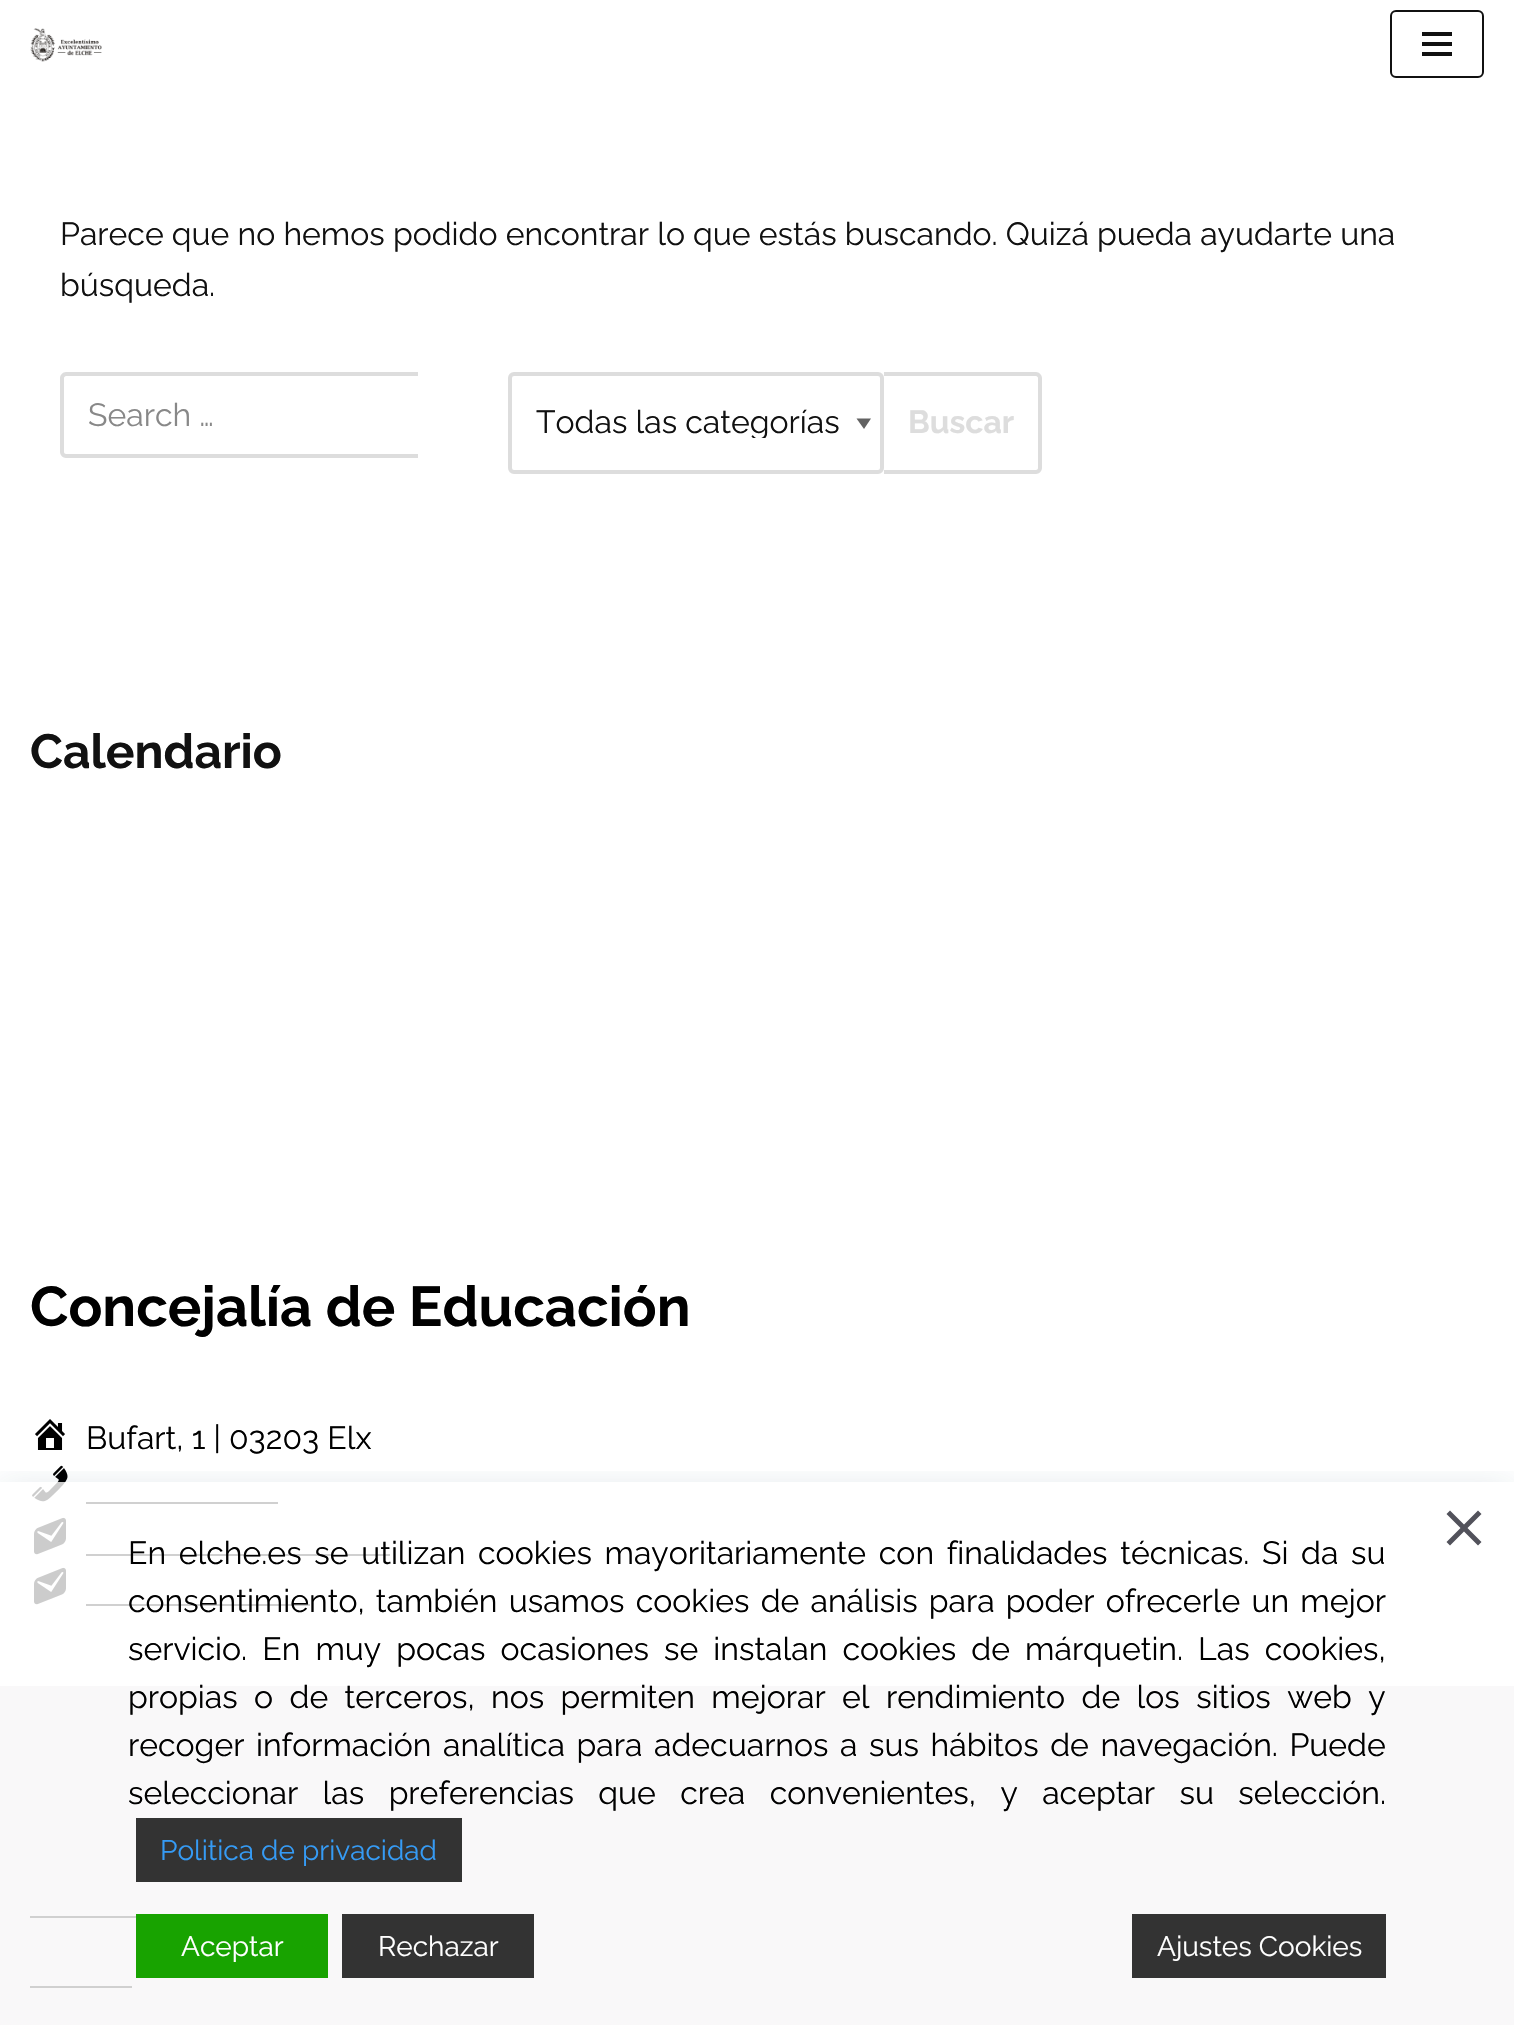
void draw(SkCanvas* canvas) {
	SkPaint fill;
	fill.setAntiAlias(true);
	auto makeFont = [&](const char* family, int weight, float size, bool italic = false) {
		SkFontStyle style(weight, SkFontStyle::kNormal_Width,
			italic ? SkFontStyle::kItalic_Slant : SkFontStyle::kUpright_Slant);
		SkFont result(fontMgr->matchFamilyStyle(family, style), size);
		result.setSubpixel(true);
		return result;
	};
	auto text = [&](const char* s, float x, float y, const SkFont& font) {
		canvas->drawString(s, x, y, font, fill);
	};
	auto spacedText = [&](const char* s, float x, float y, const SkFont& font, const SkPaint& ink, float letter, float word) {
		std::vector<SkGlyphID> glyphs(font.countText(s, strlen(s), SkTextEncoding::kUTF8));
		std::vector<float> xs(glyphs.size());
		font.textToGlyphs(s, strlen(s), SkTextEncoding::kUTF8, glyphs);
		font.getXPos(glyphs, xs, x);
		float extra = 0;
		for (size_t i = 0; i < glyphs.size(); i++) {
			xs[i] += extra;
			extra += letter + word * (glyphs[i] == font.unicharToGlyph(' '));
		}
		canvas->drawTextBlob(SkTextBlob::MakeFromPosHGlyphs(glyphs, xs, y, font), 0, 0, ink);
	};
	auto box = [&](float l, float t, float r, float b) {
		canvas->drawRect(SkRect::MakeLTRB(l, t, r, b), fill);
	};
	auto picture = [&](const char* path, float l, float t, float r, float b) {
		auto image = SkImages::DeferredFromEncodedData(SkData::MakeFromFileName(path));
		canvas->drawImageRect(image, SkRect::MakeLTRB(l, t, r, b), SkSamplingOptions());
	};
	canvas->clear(0xFFFFFFFF);
	picture("image0.png", 30, 28, 102, 62);
	fill.setStyle(SkPaint::kStroke_Style);
	fill.setStrokeWidth(2);
	fill.setColor(0xFF111111);
	canvas->drawRoundRect(SkRect::MakeLTRB(1391, 11, 1483, 77), 5, 5, fill);
	fill.setStyle(SkPaint::kFill_Style);
	box(1422, 32, 1452, 36);
	box(1422, 42, 1452, 46);
	box(1422, 52, 1452, 56);
	fill.setColor(0xFFDDDDDD);
	canvas->drawPath(SkPathBuilder(SkPathFillType::kEvenOdd).moveTo(66, 372).lineTo(418, 372).lineTo(418, 458).lineTo(66, 458).cubicTo(63, 458, 60, 455, 60, 452).lineTo(60, 378).cubicTo(60, 375, 63, 372, 66, 372).close().moveTo(66, 376).lineTo(418, 376).lineTo(418, 454).lineTo(66, 454).cubicTo(65, 454, 64, 453, 64, 452).lineTo(64, 378).cubicTo(64, 377, 65, 376, 66, 376).close().detach(), fill);
	fill.setColor(0xFF626262);
	canvas->drawPath(SkPathBuilder().moveTo(871, 418.5f).lineTo(864, 429).lineTo(856.5f, 418.5f).close().detach(), fill);
	fill.setStyle(SkPaint::kStroke_Style);
	fill.setStrokeWidth(4);
	fill.setColor(0xFFDDDDDD);
	canvas->drawRoundRect(SkRect::MakeLTRB(510, 374, 882, 472), 4, 4, fill);
	fill.setStyle(SkPaint::kFill_Style);
	canvas->drawPath(SkPathBuilder(SkPathFillType::kEvenOdd).moveTo(884, 372).lineTo(1036, 372).cubicTo(1039, 372, 1042, 375, 1042, 378).lineTo(1042, 468).cubicTo(1042, 471, 1039, 474, 1036, 474).lineTo(884, 474).close().moveTo(884, 376).lineTo(1036, 376).cubicTo(1037, 376, 1038, 377, 1038, 378).lineTo(1038, 468).cubicTo(1038, 469, 1037, 470, 1036, 470).lineTo(884, 470).close().detach(), fill);
	picture("image1.png", 35, 1419, 65, 1450);
	picture("image2.png", 32, 1465, 68, 1502);
	fill.setColor(0xFF111111);
	box(86, 1502, 278, 1504);
	picture("image3.png", 34, 1517, 66, 1555);
	box(86, 1554, 390, 1556);
	picture("image3.png", 34, 1567, 66, 1605);
	box(86, 1604, 310, 1606);
	fill.setColor(0xFFDDDCDF);
	box(0, 1686, 1514, 2025);
	fill.setColor(0xFF111111);
	box(30, 1916, 136, 1918);
	box(30, 1986, 132, 1988);
	canvas->save();
	canvas->clipRect(SkRect::MakeLTRB(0, 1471, 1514, 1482));
	fill.setColor(0x1C042A4B);
	fill.setMaskFilter(SkMaskFilter::MakeBlur(kNormal_SkBlurStyle, 17));
	canvas->drawRect(SkRect::MakeLTRB(0, 1486, 1514, 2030), fill);
	fill.setMaskFilter(nullptr);
	canvas->restore();
	fill.setColor(0xCCFFFFFF);
	box(0, 1482, 1514, 2025);
	fill.setColor(0xFF52525B);
	canvas->drawPath(SkPathBuilder().moveTo(1450, 1545.5f).lineTo(1446.5f, 1542).lineTo(1460.5f, 1528).lineTo(1446.5f, 1514).lineTo(1450, 1510.5f).lineTo(1464, 1524.5f).lineTo(1478, 1510.5f).lineTo(1481.5f, 1514).lineTo(1467.5f, 1528).lineTo(1481.5f, 1542).lineTo(1478, 1545.5f).lineTo(1464, 1531.5f).close().detach(), fill);
	fill.setColor(0xFF333333);
	box(136, 1818, 462, 1882);
	fill.setColor(0xFF18A300);
	box(136, 1914, 328, 1978);
	fill.setColor(0xFF333333);
	box(342, 1914, 534, 1978);
	box(1132, 1914, 1386, 1978);
	auto font1 = makeFont("Raleway", 400, 32);
	fill.setColor(0xFF111111);
	text("Parece que no hemos podido encontrar lo que estás buscando. Quizá pueda ayudarte una", 60, 245, font1);
	text("búsqueda.", 60, 296, font1);
	fill.setColor(0xFF888888);
	text("Search …", 88, 426, font1);
	canvas->save();
	canvas->clipRect(SkRect::MakeLTRB(536, 406, 840, 438));
	fill.setColor(0xFF111111);
	text("Todas las categorías", 536, 433, font1);
	canvas->restore();
	auto font2 = makeFont("Raleway", 700, 32);
	fill.setColor(0xFFDDDDDD);
	text("Buscar", 908, 433, font2);
	auto font3 = makeFont("Raleway", 700, 48);
	fill.setColor(0xFF111111);
	text("Calendario", 30, 768, font3);
	auto font4 = makeFont("Raleway", 700, 56);
	fill.setColor(0xFF000000);
	text("Concejalía de Educación", 30, 1326, font4);
	text("Bufart, 1 | 03203 Elx", 86, 1449, font1);
	spacedText("En elche.es se utilizan cookies mayoritariamente con finalidades técnicas. Si da su", 128, 1564, font1, fill, 0, 4.5f);
	spacedText("consentimiento, también usamos cookies de análisis para poder ofrecerle un mejor", 128, 1612, font1, fill, 0, 3);
	spacedText("servicio. En muy pocas ocasiones se instalan cookies de márquetin. Las cookies,", 128, 1660, font1, fill, 0, 6.9f);
	spacedText("propias o de terceros, nos permiten mejorar el rendimiento de los sitios web y", 128, 1708, font1, fill, 0, 8.25f);
	spacedText("recoger información analítica para adecuarnos a sus hábitos de navegación. Puede", 128, 1756, font1, fill, 0, 3.4f);
	spacedText("seleccionar las preferencias que crea convenientes, y aceptar su selección.", 128, 1804, font1, fill, 0, 16.25f);
	auto font5 = makeFont("Raleway", 400, 28);
	fill.setColor(0xFF359BF5);
	text("Politica de privacidad", 160, 1860, font5);
	fill.setColor(0xFFFFFFFF);
	text("Aceptar", 181, 1956, font5);
	text("Rechazar", 378, 1956, font5);
	text("Ajustes Cookies", 1157, 1956, font5);
}
